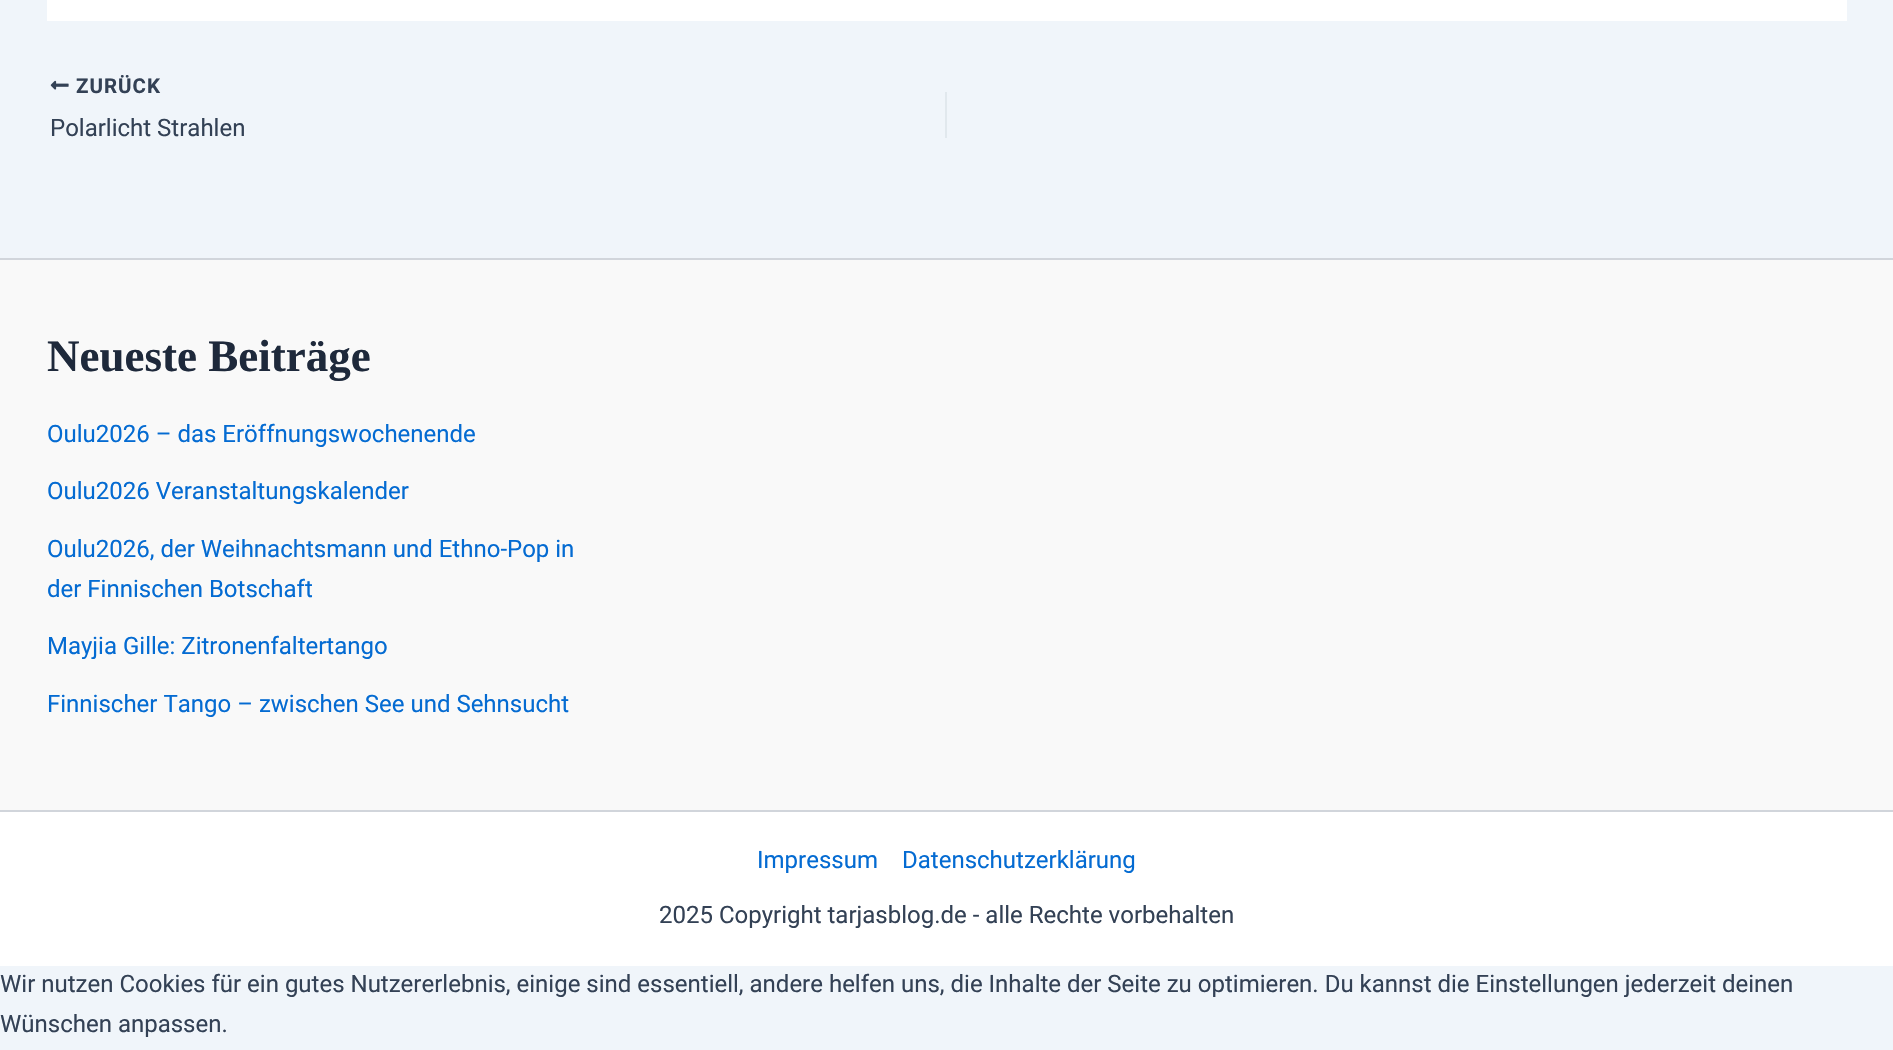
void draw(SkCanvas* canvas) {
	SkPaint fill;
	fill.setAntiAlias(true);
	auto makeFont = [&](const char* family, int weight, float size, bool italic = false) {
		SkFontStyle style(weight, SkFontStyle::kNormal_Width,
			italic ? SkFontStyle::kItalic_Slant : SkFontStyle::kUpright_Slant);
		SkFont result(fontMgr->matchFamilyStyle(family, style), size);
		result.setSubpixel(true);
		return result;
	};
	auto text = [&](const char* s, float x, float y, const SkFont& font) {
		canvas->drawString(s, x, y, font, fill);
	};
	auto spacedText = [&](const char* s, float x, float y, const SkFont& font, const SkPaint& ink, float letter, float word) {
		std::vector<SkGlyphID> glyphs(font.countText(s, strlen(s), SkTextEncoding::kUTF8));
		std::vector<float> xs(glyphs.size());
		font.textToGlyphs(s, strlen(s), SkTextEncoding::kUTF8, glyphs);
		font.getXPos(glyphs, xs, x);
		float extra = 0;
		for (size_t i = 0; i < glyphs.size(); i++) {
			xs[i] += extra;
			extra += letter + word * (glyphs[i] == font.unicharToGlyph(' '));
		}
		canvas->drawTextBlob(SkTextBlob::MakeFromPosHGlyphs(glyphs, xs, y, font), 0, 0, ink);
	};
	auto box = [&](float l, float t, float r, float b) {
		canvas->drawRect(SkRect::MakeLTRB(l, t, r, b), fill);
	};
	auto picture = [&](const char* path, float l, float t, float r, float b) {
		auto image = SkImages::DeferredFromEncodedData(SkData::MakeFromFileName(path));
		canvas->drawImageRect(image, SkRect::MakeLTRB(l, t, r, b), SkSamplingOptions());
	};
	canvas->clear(0xFFF0F5FA);
	fill.setColor(0xFFFFFFFF);
	box(47, 0, 1847, 21);
	picture("image0.png", 50, 80, 69, 90);
	fill.setColor(0xFFE1E8ED);
	box(945, 92, 947, 138);
	fill.setColor(0xFFF9F9F9);
	box(0, 260, 1893, 810);
	fill.setColor(0xFFD1D5DB);
	box(0, 258, 1893, 260);
	fill.setColor(0xFFFFFFFF);
	box(0, 812, 1893, 966);
	fill.setColor(0xFFD1D5DB);
	box(0, 810, 1893, 812);
	auto font1 = makeFont("Roboto", 700, 20.5f);
	fill.setColor(0xFF334155);
	spacedText("ZURÜCK", 76, 93, font1, fill, 1, 0);
	auto font2 = makeFont("Roboto", 400, 24);
	text("Polarlicht Strahlen", 50, 136, font2);
	auto font3 = makeFont("Liberation Serif", 700, 45);
	fill.setColor(0xFF1E293B);
	text("Neueste Beiträge", 47, 371, font3);
	fill.setColor(0xFF046BD2);
	text("Oulu2026 – das Eröffnungswochenende", 47, 442, font2);
	text("Oulu2026 Veranstaltungskalender", 47, 499, font2);
	text("Oulu2026, der Weihnachtsmann und Ethno-Pop in", 47, 557, font2);
	text("der Finnischen Botschaft", 47, 597, font2);
	text("Mayjia Gille: Zitronenfaltertango", 47, 654, font2);
	text("Finnischer Tango – zwischen See und Sehnsucht", 47, 712, font2);
	text("Impressum", 757, 868, font2);
	text("Datenschutzerklärung", 902, 868, font2);
	fill.setColor(0xFF334155);
	text("2025 Copyright tarjasblog.de - alle Rechte vorbehalten", 659, 923, font2);
	text("Wir nutzen Cookies für ein gutes Nutzererlebnis, einige sind essentiell, andere helfen uns, die Inhalte der Seite zu optimieren. Du kannst die Einstellungen jederzeit deinen", 0, 992, font2);
	text("Wünschen anpassen.", 0, 1032, font2);
}
